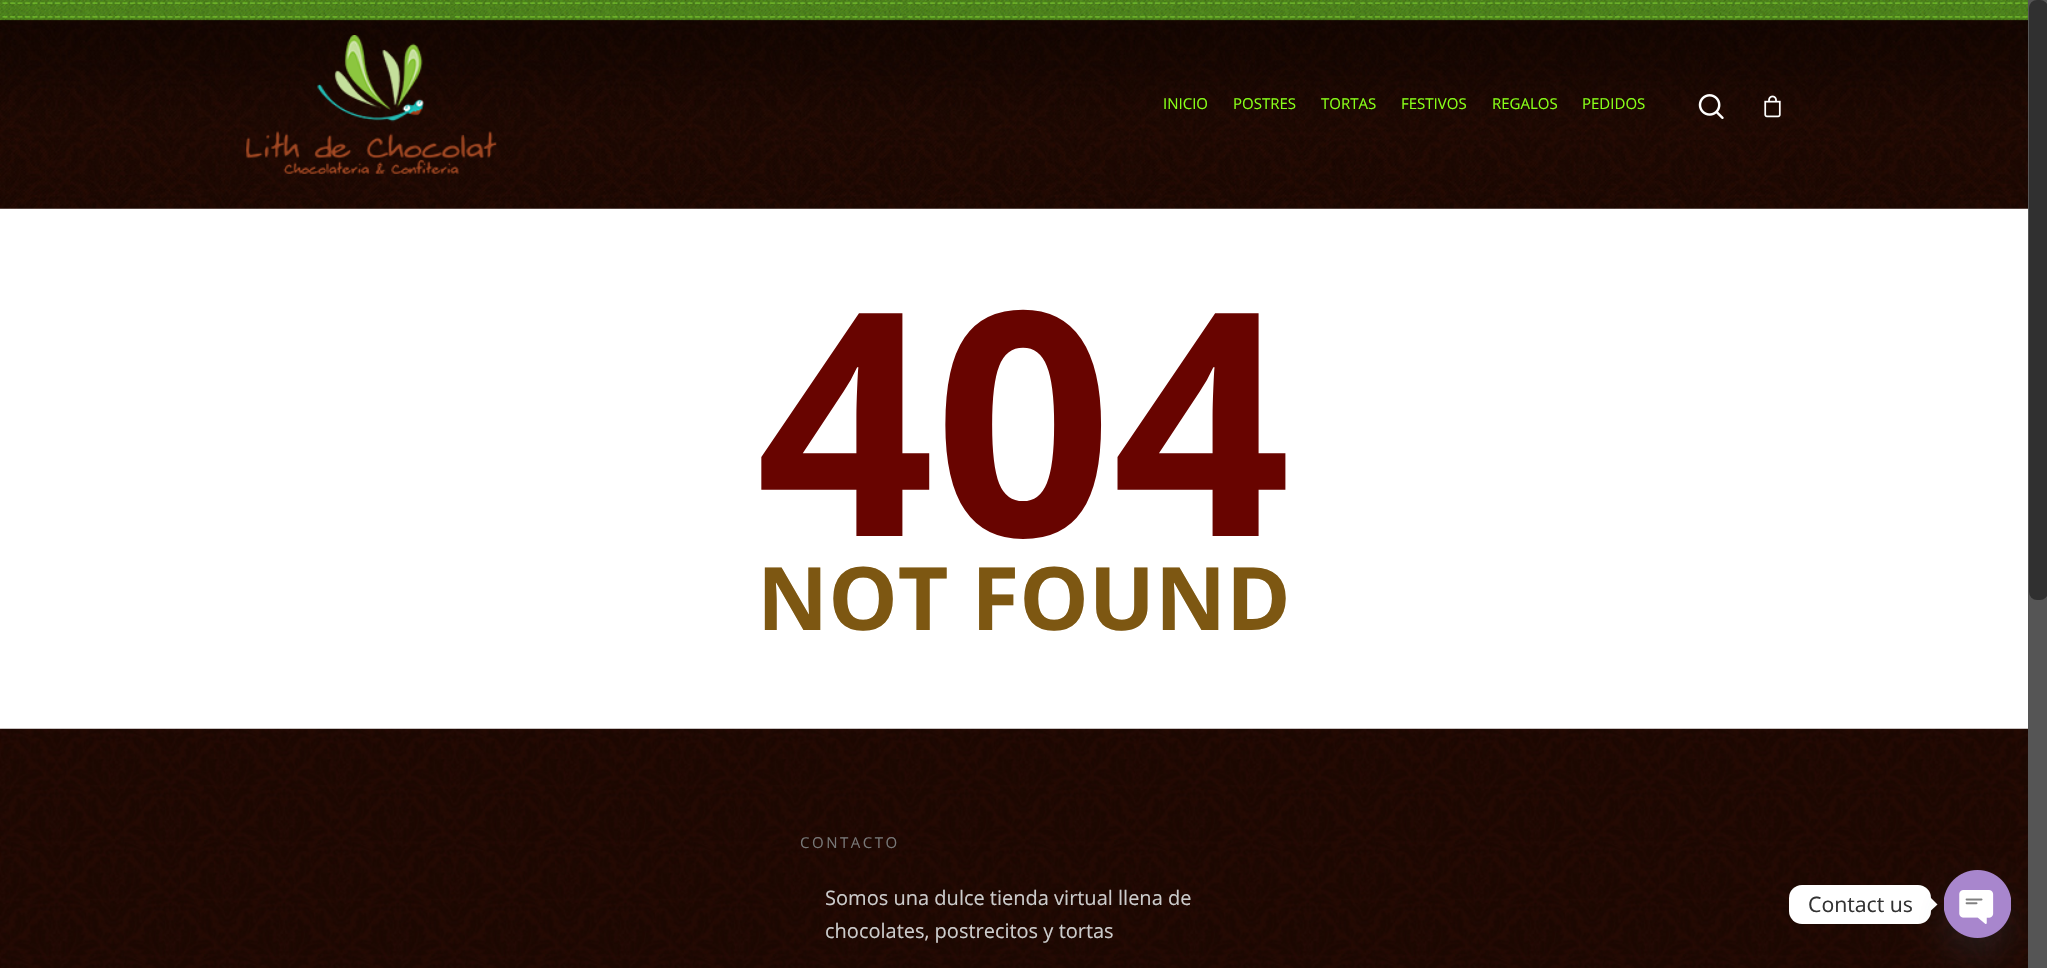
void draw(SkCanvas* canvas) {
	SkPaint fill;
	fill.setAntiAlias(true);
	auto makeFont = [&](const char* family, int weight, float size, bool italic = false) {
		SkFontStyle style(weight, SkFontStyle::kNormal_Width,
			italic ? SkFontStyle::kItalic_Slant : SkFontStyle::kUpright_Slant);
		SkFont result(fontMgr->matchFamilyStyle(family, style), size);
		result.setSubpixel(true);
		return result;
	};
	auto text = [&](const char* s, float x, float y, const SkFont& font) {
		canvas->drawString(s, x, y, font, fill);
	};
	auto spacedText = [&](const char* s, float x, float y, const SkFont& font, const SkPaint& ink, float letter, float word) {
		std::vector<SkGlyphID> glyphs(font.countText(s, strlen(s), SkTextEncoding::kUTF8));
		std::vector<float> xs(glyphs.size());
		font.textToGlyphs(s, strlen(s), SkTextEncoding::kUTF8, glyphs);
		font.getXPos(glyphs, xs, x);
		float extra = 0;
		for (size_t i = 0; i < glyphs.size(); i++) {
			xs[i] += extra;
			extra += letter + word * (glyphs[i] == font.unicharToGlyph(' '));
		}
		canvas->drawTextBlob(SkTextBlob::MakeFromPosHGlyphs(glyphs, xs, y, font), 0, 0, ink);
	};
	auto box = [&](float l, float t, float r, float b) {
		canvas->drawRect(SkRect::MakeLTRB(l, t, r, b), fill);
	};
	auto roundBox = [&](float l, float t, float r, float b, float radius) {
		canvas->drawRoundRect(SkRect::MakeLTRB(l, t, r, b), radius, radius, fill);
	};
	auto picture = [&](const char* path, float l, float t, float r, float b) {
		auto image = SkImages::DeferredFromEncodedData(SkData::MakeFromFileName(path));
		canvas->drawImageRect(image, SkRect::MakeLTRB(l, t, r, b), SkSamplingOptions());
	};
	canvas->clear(0xFFFFFFFF);
	picture("image0.png", 0, 0, 2028, 209);
	picture("image1.png", 246, 35, 497, 174);
	picture("image2.png", 1698, 94, 1724, 119);
	picture("image3.png", 1764, 95, 1781, 118);
	picture("image4.png", 0, 728, 2028, 968);
	fill.setColor(0xFFFFFFFF);
	roundBox(1789, 885, 1931, 924, 13);
	canvas->drawPath(SkPathBuilder().moveTo(1931, 910.5f).lineTo(1931, 898).lineTo(1937.5f, 904.5f).close().detach(), fill);
	fill.setColor(0x2949687E);
	fill.setMaskFilter(SkMaskFilter::MakeBlur(kNormal_SkBlurStyle, 15));
	canvas->drawRoundRect(SkRect::MakeLTRB(1944, 890, 2011, 958), 33.5f, 33.5f, fill);
	fill.setMaskFilter(nullptr);
	picture("image5.png", 1944, 870, 2011, 938);
	fill.setColor(0xFF555555);
	box(2028, 0, 2047, 968);
	fill.setColor(0xFF303030);
	roundBox(2029, 0, 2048, 600, 8);
	auto font1 = makeFont("Open Sans", 400, 15);
	fill.setColor(0xFF88FF18);
	text("INICIO", 1163, 109, font1);
	text("POSTRES", 1233, 109, font1);
	text("TORTAS", 1321, 109, font1);
	text("FESTIVOS", 1401, 109, font1);
	text("REGALOS", 1492, 109, font1);
	text("PEDIDOS", 1582, 109, font1);
	auto font2 = makeFont("Open Sans", 700, 312);
	fill.setColor(0xFF680400);
	text("404", 756, 536, font2);
	auto font3 = makeFont("Open Sans", 700, 87.5f);
	fill.setColor(0xFF7D5712);
	text("NOT FOUND", 757, 630, font3);
	fill.setColor(0xFF777777);
	spacedText("CONTACTO", 800, 848, font1, fill, 2.5f, 0);
	auto font4 = makeFont("Open Sans", 400, 20);
	fill.setColor(0xFFCCCCCC);
	text("Somos una dulce tienda virtual llena de", 825, 905, font4);
	text("chocolates, postrecitos y tortas", 825, 938, font4);
	auto font5 = makeFont("Open Sans", 400, 21.25f);
	fill.setColor(0xFF333333);
	text("Contact us", 1808, 912, font5);
}
